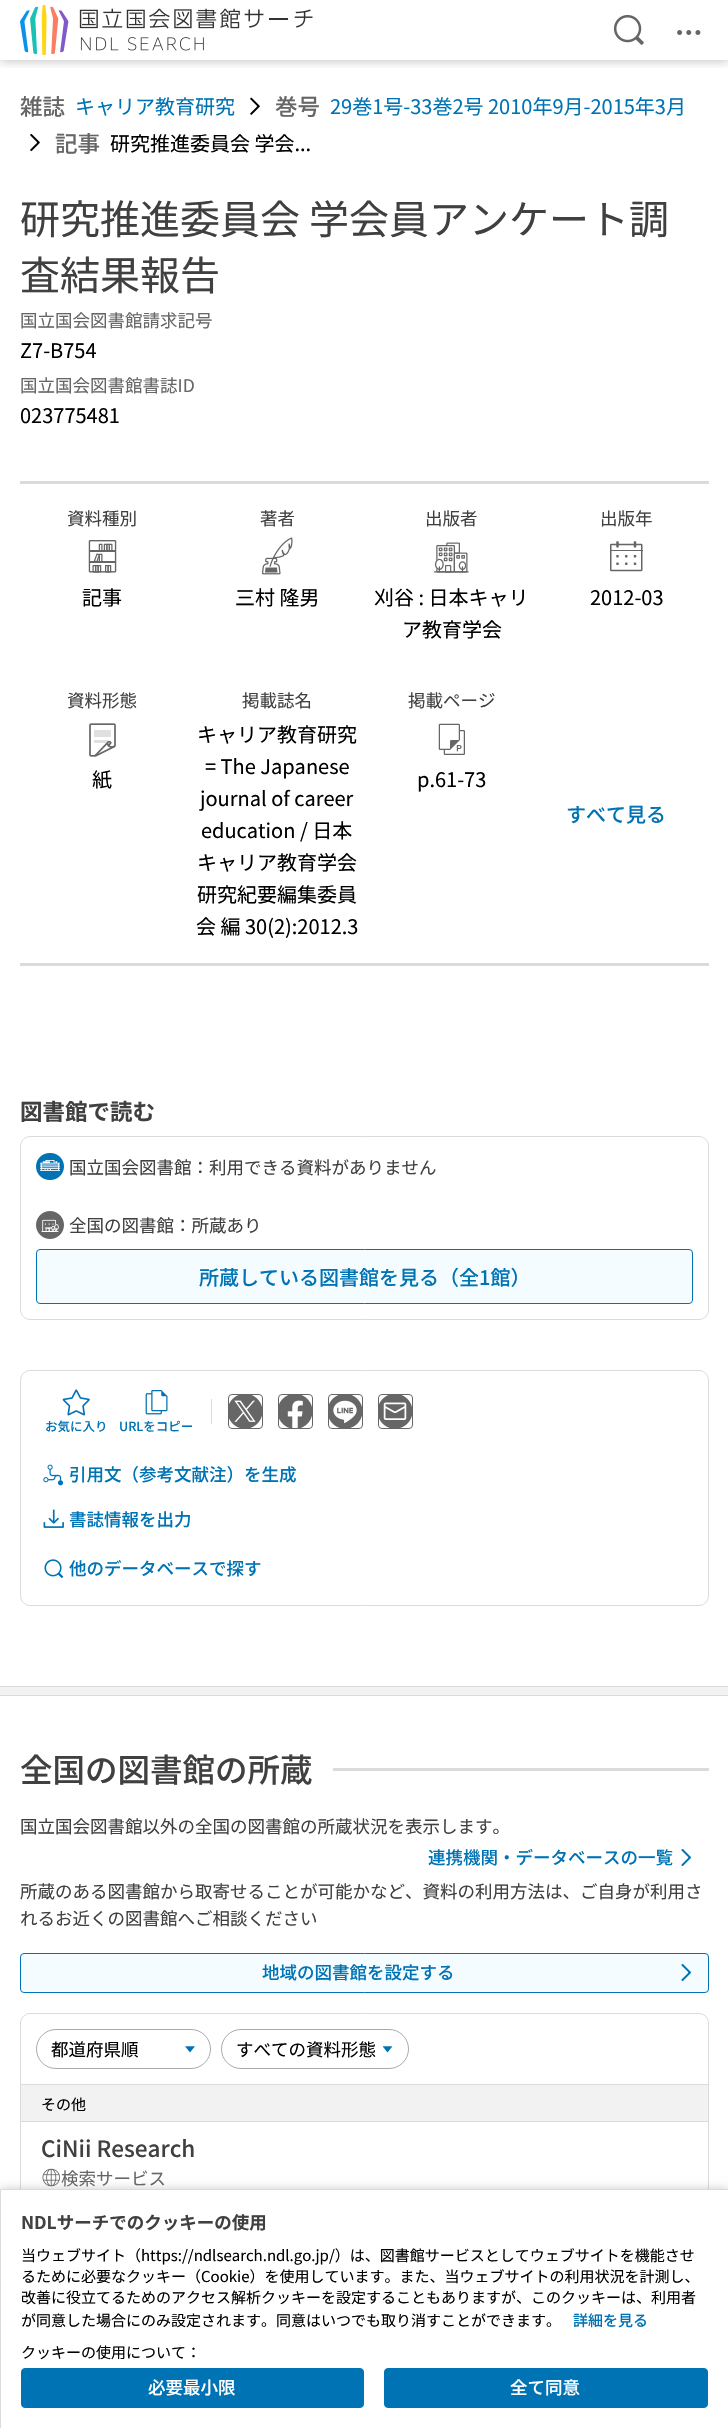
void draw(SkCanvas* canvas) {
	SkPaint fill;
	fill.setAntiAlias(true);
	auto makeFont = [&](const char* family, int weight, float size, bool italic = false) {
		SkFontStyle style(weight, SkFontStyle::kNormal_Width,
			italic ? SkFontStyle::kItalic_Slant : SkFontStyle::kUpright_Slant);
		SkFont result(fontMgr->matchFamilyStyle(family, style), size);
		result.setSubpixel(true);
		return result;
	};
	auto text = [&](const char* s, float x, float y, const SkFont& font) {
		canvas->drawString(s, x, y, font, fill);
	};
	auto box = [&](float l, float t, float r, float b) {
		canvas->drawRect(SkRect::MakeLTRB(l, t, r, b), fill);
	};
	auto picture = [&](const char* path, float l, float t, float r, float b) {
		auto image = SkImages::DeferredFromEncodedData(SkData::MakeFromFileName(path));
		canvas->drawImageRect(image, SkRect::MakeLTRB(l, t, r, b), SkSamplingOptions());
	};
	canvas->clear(0xFFFFFFFF);
	canvas->save();
	canvas->clipRect(SkRect::MakeLTRB(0, 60, 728, 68));
	fill.setColor(0x3D000000);
	fill.setMaskFilter(SkMaskFilter::MakeBlur(kNormal_SkBlurStyle, 5));
	canvas->drawRect(SkRect::MakeLTRB(0, 1, 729, 61), fill);
	fill.setMaskFilter(nullptr);
	canvas->restore();
	picture("image0.png", 20, 5, 313, 55);
	picture("image1.png", 613, 14, 644, 45);
	picture("image2.png", 677, 30, 701, 35);
	picture("image3.png", 250, 97, 260, 115);
	picture("image4.png", 30, 133, 40, 152);
	fill.setColor(0xFFDBDBDB);
	box(20, 481, 709, 484);
	picture("image5.png", 88, 540, 117, 573);
	picture("image6.png", 262, 537, 293, 575);
	picture("image7.png", 433, 542, 469, 573);
	picture("image8.png", 610, 541, 643, 572);
	picture("image9.png", 89, 723, 116, 757);
	picture("image10.png", 438, 723, 465, 755);
	box(20, 963, 709, 966);
	fill.setStyle(SkPaint::kStroke_Style);
	fill.setStrokeWidth(1);
	canvas->drawRoundRect(SkRect::MakeLTRB(20.5f, 1136.5f, 708.5f, 1319.5f), 9.5f, 9.5f, fill);
	picture("image11.png", 36, 1153, 64, 1180);
	picture("image12.png", 36, 1211, 64, 1239);
	fill.setStyle(SkPaint::kFill_Style);
	fill.setColor(0xFFF5FCFF);
	canvas->drawRoundRect(SkRect::MakeLTRB(36.5f, 1249.5f, 692.5f, 1303.5f), 3.5f, 3.5f, fill);
	fill.setStyle(SkPaint::kStroke_Style);
	fill.setColor(0xFF0073B5);
	canvas->drawRoundRect(SkRect::MakeLTRB(36.5f, 1249.5f, 692.5f, 1303.5f), 3.5f, 3.5f, fill);
	fill.setColor(0xFFDBDBDB);
	canvas->drawRoundRect(SkRect::MakeLTRB(20.5f, 1370.5f, 708.5f, 1605.5f), 9.5f, 9.5f, fill);
	fill.setStyle(SkPaint::kFill_Style);
	box(211, 1399, 212, 1424);
	fill.setStyle(SkPaint::kStroke_Style);
	fill.setColor(0xFF666666);
	canvas->drawRoundRect(SkRect::MakeLTRB(228.5f, 1394.5f, 262.5f, 1428.5f), 3.5f, 3.5f, fill);
	picture("image13.png", 229, 1395, 262, 1428);
	canvas->drawRoundRect(SkRect::MakeLTRB(278.5f, 1394.5f, 312.5f, 1428.5f), 3.5f, 3.5f, fill);
	picture("image14.png", 279, 1395, 312, 1428);
	canvas->drawRoundRect(SkRect::MakeLTRB(328.5f, 1394.5f, 362.5f, 1428.5f), 3.5f, 3.5f, fill);
	picture("image15.png", 329, 1395, 362, 1428);
	canvas->drawRoundRect(SkRect::MakeLTRB(378.5f, 1394.5f, 412.5f, 1428.5f), 3.5f, 3.5f, fill);
	picture("image16.png", 379, 1395, 412, 1428);
	picture("image17.png", 62, 1389, 90, 1416);
	picture("image18.png", 145, 1390, 168, 1415);
	picture("image19.png", 43, 1464, 64, 1486);
	picture("image20.png", 43, 1509, 64, 1528);
	picture("image21.png", 44, 1559, 64, 1578);
	fill.setStyle(SkPaint::kFill_Style);
	fill.setColor(0xFFF2F2F2);
	box(0, 1687, 728, 1695);
	fill.setColor(0xFFDBDBDB);
	box(0, 1686, 728, 1687);
	box(0, 1695, 728, 1696);
	box(333, 1768, 709, 1771);
	picture("image22.png", 681, 1848, 692, 1867);
	fill.setColor(0xFFF5FCFF);
	canvas->drawRoundRect(SkRect::MakeLTRB(20.5f, 1953.5f, 708.5f, 1992.5f), 3.5f, 3.5f, fill);
	fill.setStyle(SkPaint::kStroke_Style);
	fill.setColor(0xFF0073B5);
	canvas->drawRoundRect(SkRect::MakeLTRB(20.5f, 1953.5f, 708.5f, 1992.5f), 3.5f, 3.5f, fill);
	picture("image23.png", 681, 1963, 692, 1982);
	fill.setColor(0xFFDBDBDB);
	canvas->drawRoundRect(SkRect::MakeLTRB(20.5f, 2013.5f, 708.5f, 2334.5f), 9.5f, 9.5f, fill);
	picture("image24.png", 185, 2046, 195, 2053);
	fill.setColor(0xFFAAAAAA);
	canvas->drawRoundRect(SkRect::MakeLTRB(36.5f, 2029.5f, 210.5f, 2068.5f), 19.5f, 19.5f, fill);
	picture("image25.png", 382, 2046, 393, 2053);
	canvas->drawRoundRect(SkRect::MakeLTRB(221.5f, 2029.5f, 408.5f, 2068.5f), 19.5f, 19.5f, fill);
	fill.setStyle(SkPaint::kFill_Style);
	fill.setColor(0xFFF2F2F2);
	box(21, 2085, 708, 2121);
	fill.setColor(0xFFDBDBDB);
	box(21, 2084, 708, 2085);
	box(21, 2121, 708, 2122);
	picture("image26.png", 42, 2168, 60, 2187);
	fill.setColor(0x3D000000);
	fill.setMaskFilter(SkMaskFilter::MakeBlur(kNormal_SkBlurStyle, 5));
	canvas->drawRect(SkRect::MakeLTRB(0, 2190, 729, 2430), fill);
	fill.setMaskFilter(nullptr);
	fill.setColor(0xFFFFFFFF);
	canvas->drawRect(SkRect::MakeLTRB(0.5f, 2189.5f, 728.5f, 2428.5f), fill);
	fill.setStyle(SkPaint::kStroke_Style);
	fill.setColor(0xFFDBDBDB);
	canvas->drawRect(SkRect::MakeLTRB(0.5f, 2189.5f, 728.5f, 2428.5f), fill);
	fill.setStyle(SkPaint::kFill_Style);
	fill.setColor(0xFF0073B5);
	canvas->drawRoundRect(SkRect::MakeLTRB(21.5f, 2368.5f, 363.5f, 2407.5f), 3.5f, 3.5f, fill);
	fill.setStyle(SkPaint::kStroke_Style);
	canvas->drawRoundRect(SkRect::MakeLTRB(21.5f, 2368.5f, 363.5f, 2407.5f), 3.5f, 3.5f, fill);
	fill.setStyle(SkPaint::kFill_Style);
	canvas->drawRoundRect(SkRect::MakeLTRB(384.5f, 2368.5f, 707.5f, 2407.5f), 3.5f, 3.5f, fill);
	fill.setStyle(SkPaint::kStroke_Style);
	canvas->drawRoundRect(SkRect::MakeLTRB(384.5f, 2368.5f, 707.5f, 2407.5f), 3.5f, 3.5f, fill);
	auto font1 = makeFont("Noto Sans JP", 500, 22.5f);
	fill.setStyle(SkPaint::kFill_Style);
	fill.setColor(0xFF666666);
	text("雑誌", 20, 115, font1);
	auto font2 = makeFont("Noto Sans JP", 400, 20);
	fill.setColor(0xFF0073B5);
	text("キャリア教育研究", 75, 114, font2);
	fill.setColor(0xFF666666);
	text("巻号", 275, 115, font1);
	fill.setColor(0xFF0073B5);
	text("29巻1号-33巻2号 2010年9月-2015年3月", 330, 114, font2);
	fill.setColor(0xFF666666);
	text("記事", 55, 152, font1);
	fill.setColor(0xFF000000);
	text("研究推進委員会 学会...", 110, 151, font2);
	auto font3 = makeFont("Noto Sans JP", 400, 40);
	fill.setColor(0xFF404040);
	text("研究推進委員会 学会員アンケート調", 20, 234, font3);
	text("査結果報告", 20, 290, font3);
	auto font4 = makeFont("Noto Sans JP", 400, 17.5f);
	fill.setColor(0xFF666666);
	text("国立国会図書館請求記号", 20, 327, font4);
	fill.setColor(0xFF000000);
	text("Z7-B754", 20, 358, font2);
	fill.setColor(0xFF666666);
	text("国立国会図書館書誌ID", 20, 392, font4);
	fill.setColor(0xFF000000);
	text("023775481", 20, 423, font2);
	fill.setColor(0xFF404040);
	text("資料種別", 67, 525, font4);
	fill.setColor(0xFF000000);
	text("記事", 82, 605, font2);
	fill.setColor(0xFF404040);
	text("著者", 260, 525, font4);
	fill.setColor(0xFF000000);
	text("三村 隆男", 235, 605, font2);
	fill.setColor(0xFF404040);
	text("出版者", 425, 525, font4);
	fill.setColor(0xFF000000);
	text("刈谷 : 日本キャリ", 374, 605, font2);
	text("ア教育学会", 402, 637, font2);
	fill.setColor(0xFF404040);
	text("出版年", 600, 525, font4);
	fill.setColor(0xFF000000);
	text("2012-03", 590, 605, font2);
	fill.setColor(0xFF404040);
	text("資料形態", 67, 707, font4);
	fill.setColor(0xFF000000);
	text("紙", 92, 787, font2);
	fill.setColor(0xFF404040);
	text("掲載誌名", 242, 707, font4);
	fill.setColor(0xFF000000);
	text("キャリア教育研究", 197, 742, font2);
	text("= The Japanese", 205, 774, font2);
	text("journal of career", 200, 806, font2);
	text("education / 日本", 201, 838, font2);
	text("キャリア教育学会", 197, 870, font2);
	text("研究紀要編集委員", 197, 902, font2);
	text("会 編 30(2):2012.3", 196, 934, font2);
	fill.setColor(0xFF404040);
	text("掲載ページ", 408, 707, font4);
	fill.setColor(0xFF000000);
	text("p.61-73", 417, 787, font2);
	auto font5 = makeFont("Noto Sans JP", 500, 20);
	fill.setColor(0xFF0073B5);
	text("すべて見る", 566, 822, font5);
	auto font6 = makeFont("Noto Sans JP", 700, 22.5f);
	fill.setColor(0xFF404040);
	text("図書館で読む", 20, 1120, font6);
	text("国立国会図書館：利用できる資料がありません", 69, 1174, font4);
	text("全国の図書館：所蔵あり", 69, 1232, font4);
	fill.setColor(0xFF0073B5);
	text("所蔵している図書館を見る（全1館）", 199, 1285, font5);
	auto font7 = makeFont("Noto Sans JP", 500, 12.5f);
	text("お気に入り", 45, 1431, font7);
	text("URLをコピー", 119, 1431, font7);
	auto font8 = makeFont("Noto Sans JP", 500, 17.5f);
	text("引用文（参考文献注）を生成", 69, 1481, font8);
	text("書誌情報を出力", 69, 1526, font8);
	text("他のデータベースで探す", 69, 1575, font8);
	auto font9 = makeFont("Noto Sans JP", 500, 32.5f);
	fill.setColor(0xFF404040);
	text("全国の図書館の所蔵", 20, 1782, font9);
	text("国立国会図書館以外の全国の図書館の所蔵状況を表示します。", 20, 1833, font4);
	fill.setColor(0xFF0073B5);
	text("連携機関・データベースの一覧", 428, 1864, font8);
	fill.setColor(0xFF404040);
	text("所蔵のある図書館から取寄せることが可能かなど、資料の利用方法は、ご自身が利用さ", 20, 1898, font4);
	text("れるお近くの図書館へご相談ください", 20, 1925, font4);
	fill.setColor(0xFF0073B5);
	text("地域の図書館を設定する", 262, 1979, font8);
	fill.setColor(0xFF000000);
	text("都道府県順", 51, 2056, font4);
	text("すべての資料形態", 236, 2056, font4);
	auto font10 = makeFont("Noto Sans JP", 400, 15);
	text("その他", 41, 2110, font10);
	fill.setColor(0xFF404040);
	text("CiNii Research", 41, 2157, font1);
	fill.setColor(0xFF666666);
	text("検索サービス", 61, 2185, font4);
	auto font11 = makeFont("Noto Sans JP", 700, 17.5f);
	fill.setColor(0xFF404040);
	text("NDLサーチでのクッキーの使用", 21, 2229, font11);
	fill.setColor(0xFF000000);
	text("当ウェブサイト（https://ndlsearch.ndl.go.jp/）は、図書館サービスとしてウェブサイトを機能させ", 21, 2261, font10);
	text("るために必要なクッキー（Cookie）を使用しています。また、当ウェブサイトの利用状況を計測し、", 21, 2282, font10);
	text("改善に役立てるためのアクセス解析クッキーを設定することもありますが、このクッキーは、利用者", 21, 2303, font10);
	text("が同意した場合にのみ設定されます。同意はいつでも取り消すことができます。", 21, 2326, font10);
	auto font12 = makeFont("Noto Sans JP", 500, 15);
	fill.setColor(0xFF0073B5);
	text("詳細を見る", 573, 2326, font12);
	fill.setColor(0xFF000000);
	text("クッキーの使用について：", 21, 2358, font10);
	fill.setColor(0xFFFFFFFF);
	text("必要最小限", 148, 2394, font8);
	text("全て同意", 510, 2394, font8);
}
